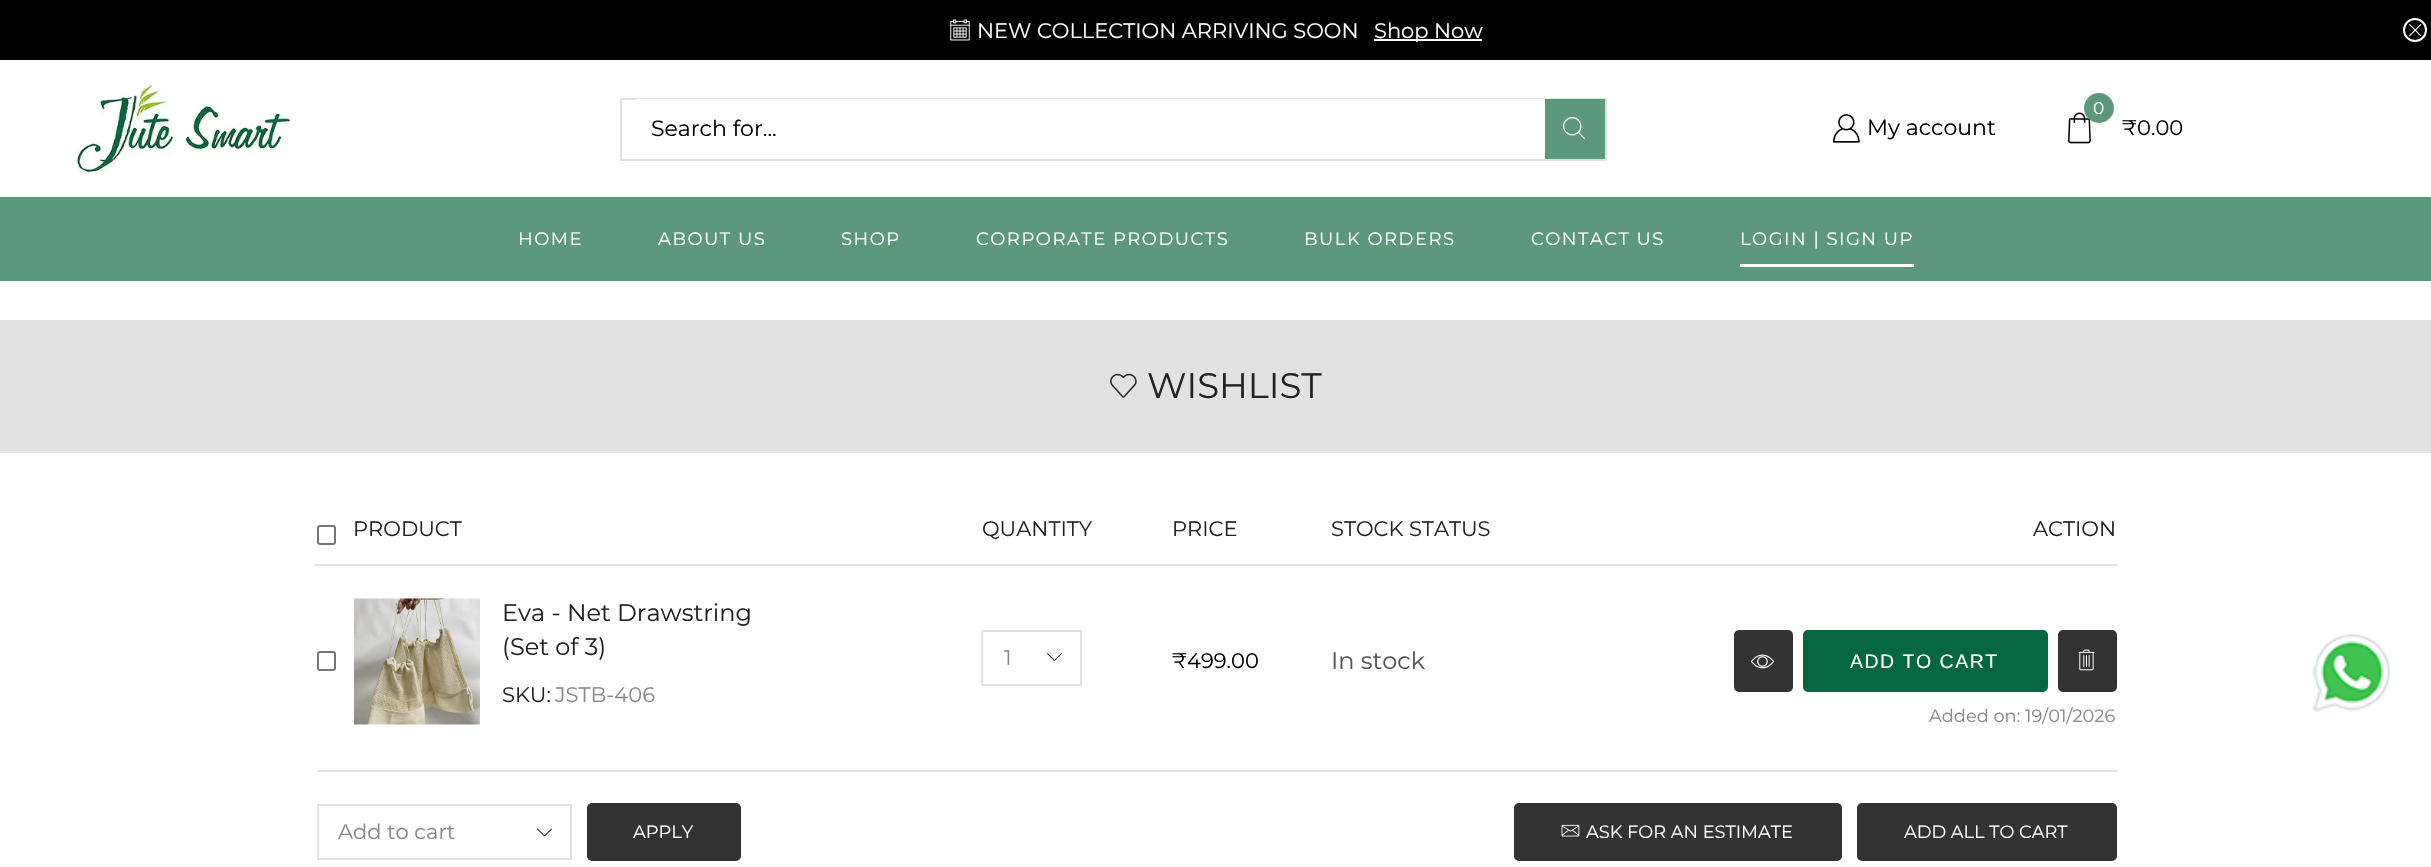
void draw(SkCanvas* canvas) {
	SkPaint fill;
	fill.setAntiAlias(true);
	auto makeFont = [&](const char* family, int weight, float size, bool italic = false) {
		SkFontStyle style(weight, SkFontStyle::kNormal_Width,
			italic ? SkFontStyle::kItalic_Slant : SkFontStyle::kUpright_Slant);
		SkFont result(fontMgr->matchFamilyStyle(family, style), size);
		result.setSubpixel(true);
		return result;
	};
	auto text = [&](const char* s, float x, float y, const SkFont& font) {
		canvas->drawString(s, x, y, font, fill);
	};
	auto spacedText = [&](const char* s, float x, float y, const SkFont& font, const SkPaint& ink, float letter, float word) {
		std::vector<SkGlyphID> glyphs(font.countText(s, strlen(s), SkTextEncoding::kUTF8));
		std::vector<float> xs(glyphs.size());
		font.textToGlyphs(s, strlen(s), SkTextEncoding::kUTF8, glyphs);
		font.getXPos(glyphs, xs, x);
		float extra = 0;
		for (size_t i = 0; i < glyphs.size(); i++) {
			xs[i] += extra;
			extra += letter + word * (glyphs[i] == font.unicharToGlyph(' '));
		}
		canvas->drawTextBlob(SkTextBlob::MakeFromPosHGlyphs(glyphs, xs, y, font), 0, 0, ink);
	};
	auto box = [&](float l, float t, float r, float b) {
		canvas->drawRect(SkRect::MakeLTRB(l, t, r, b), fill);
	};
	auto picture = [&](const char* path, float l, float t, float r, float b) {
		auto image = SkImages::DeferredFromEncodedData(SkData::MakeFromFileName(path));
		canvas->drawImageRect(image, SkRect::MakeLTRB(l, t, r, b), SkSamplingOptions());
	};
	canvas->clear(0xFFFFFFFF);
	fill.setColor(0xFF000000);
	box(0, 0, 2431, 60);
	picture("image0.png", 950, 19, 970, 41);
	fill.setColor(0xFFFFFFFF);
	box(1374, 39, 1482, 41);
	fill.setStyle(SkPaint::kStroke_Style);
	fill.setStrokeWidth(2);
	canvas->drawCircle(2415, 30, 11, fill);
	picture("image1.png", 2409, 24, 2422, 37);
	picture("image2.png", 75, 84, 290, 175);
	fill.setColor(0xFFE1E1E1);
	canvas->drawRect(SkRect::MakeLTRB(621, 99, 1606, 160), fill);
	fill.setStyle(SkPaint::kFill_Style);
	fill.setColor(0xFFFFFFFF);
	box(636, 99, 1545, 100);
	fill.setColor(0xFF5C997C);
	box(1545, 99, 1605, 159);
	picture("image3.png", 1563, 117, 1585, 139);
	picture("image4.png", 1833, 114, 1860, 143);
	picture("image5.png", 2068, 112, 2091, 144);
	canvas->drawCircle(2099, 108, 15, fill);
	box(0, 197, 2431, 281);
	fill.setColor(0xFFFFFFFF);
	box(1740, 264, 1914, 267);
	fill.setColor(0xFFE2E2E2);
	box(0, 320, 2431, 453);
	picture("image6.png", 1110, 373, 1137, 398);
	fill.setColor(0xFFE1E1E1);
	box(315, 564, 2117, 566);
	fill.setStyle(SkPaint::kStroke_Style);
	fill.setColor(0xFF767676);
	canvas->drawRoundRect(SkRect::MakeLTRB(318, 526, 335, 544), 2, 2, fill);
	canvas->drawRoundRect(SkRect::MakeLTRB(318, 652, 335, 670), 2, 2, fill);
	picture("image7.png", 354, 598, 480, 725);
	picture("image8.png", 1047, 653, 1062, 661);
	fill.setColor(0xFFE1E1E1);
	canvas->drawRect(SkRect::MakeLTRB(982, 631, 1081, 685), fill);
	fill.setStyle(SkPaint::kFill_Style);
	fill.setColor(0xFF333333);
	canvas->drawRoundRect(SkRect::MakeLTRB(1735, 631, 1792, 691), 4, 4, fill);
	fill.setStyle(SkPaint::kStroke_Style);
	canvas->drawRoundRect(SkRect::MakeLTRB(1735, 631, 1792, 691), 4, 4, fill);
	picture("image9.png", 1751, 654, 1775, 669);
	fill.setStyle(SkPaint::kFill_Style);
	fill.setColor(0xFF046741);
	canvas->drawRoundRect(SkRect::MakeLTRB(1804, 631, 2047, 691), 4, 4, fill);
	fill.setStyle(SkPaint::kStroke_Style);
	canvas->drawRoundRect(SkRect::MakeLTRB(1804, 631, 2047, 691), 4, 4, fill);
	fill.setStyle(SkPaint::kFill_Style);
	fill.setColor(0xFF333333);
	canvas->drawRoundRect(SkRect::MakeLTRB(2059, 631, 2116, 691), 4, 4, fill);
	fill.setStyle(SkPaint::kStroke_Style);
	canvas->drawRoundRect(SkRect::MakeLTRB(2059, 631, 2116, 691), 4, 4, fill);
	picture("image10.png", 2078, 649, 2095, 671);
	fill.setStyle(SkPaint::kFill_Style);
	fill.setColor(0xFFE1E1E1);
	box(317, 770, 2117, 772);
	picture("image11.png", 537, 828, 552, 837);
	fill.setStyle(SkPaint::kStroke_Style);
	canvas->drawRect(SkRect::MakeLTRB(318, 805, 571, 859), fill);
	fill.setStyle(SkPaint::kFill_Style);
	fill.setColor(0xFF333333);
	canvas->drawRoundRect(SkRect::MakeLTRB(588, 804, 740, 860), 4, 4, fill);
	fill.setStyle(SkPaint::kStroke_Style);
	canvas->drawRoundRect(SkRect::MakeLTRB(588, 804, 740, 860), 4, 4, fill);
	fill.setStyle(SkPaint::kFill_Style);
	canvas->drawRoundRect(SkRect::MakeLTRB(1515, 804, 1841, 860), 4, 4, fill);
	fill.setStyle(SkPaint::kStroke_Style);
	canvas->drawRoundRect(SkRect::MakeLTRB(1515, 804, 1841, 860), 4, 4, fill);
	picture("image12.png", 1561, 824, 1580, 837);
	fill.setStyle(SkPaint::kFill_Style);
	canvas->drawRoundRect(SkRect::MakeLTRB(1858, 804, 2116, 860), 4, 4, fill);
	fill.setStyle(SkPaint::kStroke_Style);
	canvas->drawRoundRect(SkRect::MakeLTRB(1858, 804, 2116, 860), 4, 4, fill);
	picture("image13.png", 2312, 634, 2391, 712);
	auto font1 = makeFont("Montserrat", 400, 21);
	fill.setStyle(SkPaint::kFill_Style);
	fill.setColor(0xFFFFFFFF);
	text("NEW COLLECTION ARRIVING SOON", 977, 38, font1);
	text("Shop Now", 1374, 38, font1);
	auto font2 = makeFont("Montserrat", 400, 22);
	fill.setColor(0xFF000000);
	text("Search for...", 651, 136, font2);
	text("My account", 1867, 135, font2);
	auto font3 = makeFont("Montserrat", 400, 17);
	fill.setColor(0xFFFFFFFF);
	text("0", 2093, 114, font3);
	fill.setColor(0xFF000000);
	text("₹0.00", 2122, 135, font1);
	auto font4 = makeFont("Montserrat", 400, 18);
	fill.setColor(0xFFFFFFFF);
	spacedText("HOME", 518, 245, font4, fill, 1.5f, 0);
	spacedText("ABOUT US", 658, 245, font4, fill, 1.5f, 0);
	spacedText("SHOP", 841, 245, font4, fill, 1.5f, 0);
	spacedText("CORPORATE PRODUCTS", 976, 245, font4, fill, 1.5f, 0);
	spacedText("BULK ORDERS", 1304, 245, font4, fill, 1.5f, 0);
	spacedText("CONTACT US", 1531, 245, font4, fill, 1.5f, 0);
	spacedText("LOGIN | SIGN UP", 1740, 245, font4, fill, 1.5f, 0);
	auto font5 = makeFont("Montserrat", 400, 35.5f);
	fill.setColor(0xFF222222);
	text("WISHLIST", 1147, 398, font5);
	text("PRODUCT", 353, 536, font1);
	text("QUANTITY", 982, 536, font1);
	text("PRICE", 1172, 536, font1);
	text("STOCK STATUS", 1331, 536, font1);
	text("ACTION", 2033, 536, font1);
	auto font6 = makeFont("Montserrat", 400, 24);
	text("Eva - Net Drawstring", 502, 621, font6);
	text("(Set of 3)", 502, 655, font6);
	text("SKU:", 502, 702, font1);
	fill.setColor(0xFF888888);
	text("JSTB-406", 555, 702, font1);
	text("1", 1004, 665, font1);
	fill.setColor(0xFF000000);
	text("₹499.00", 1172, 668, font1);
	fill.setColor(0xFF555555);
	text("In stock", 1331, 669, font6);
	auto font7 = makeFont("Liberation Sans", 400, 19.5f);
	fill.setColor(0xFFFFFFFF);
	spacedText("ADD TO CART", 1850, 668, font7, fill, 1.5f, 0);
	auto font8 = makeFont("Montserrat", 400, 17.8f);
	fill.setColor(0xFF888888);
	text("Added on: 19/01/2026", 1929, 722, font8);
	text("Add to cart", 338, 839, font1);
	fill.setColor(0xFFFFFFFF);
	text("APPLY", 633, 838, font8);
	text("ASK FOR AN ESTIMATE", 1586, 838, font8);
	text("ADD ALL TO CART", 1904, 838, font8);
}
